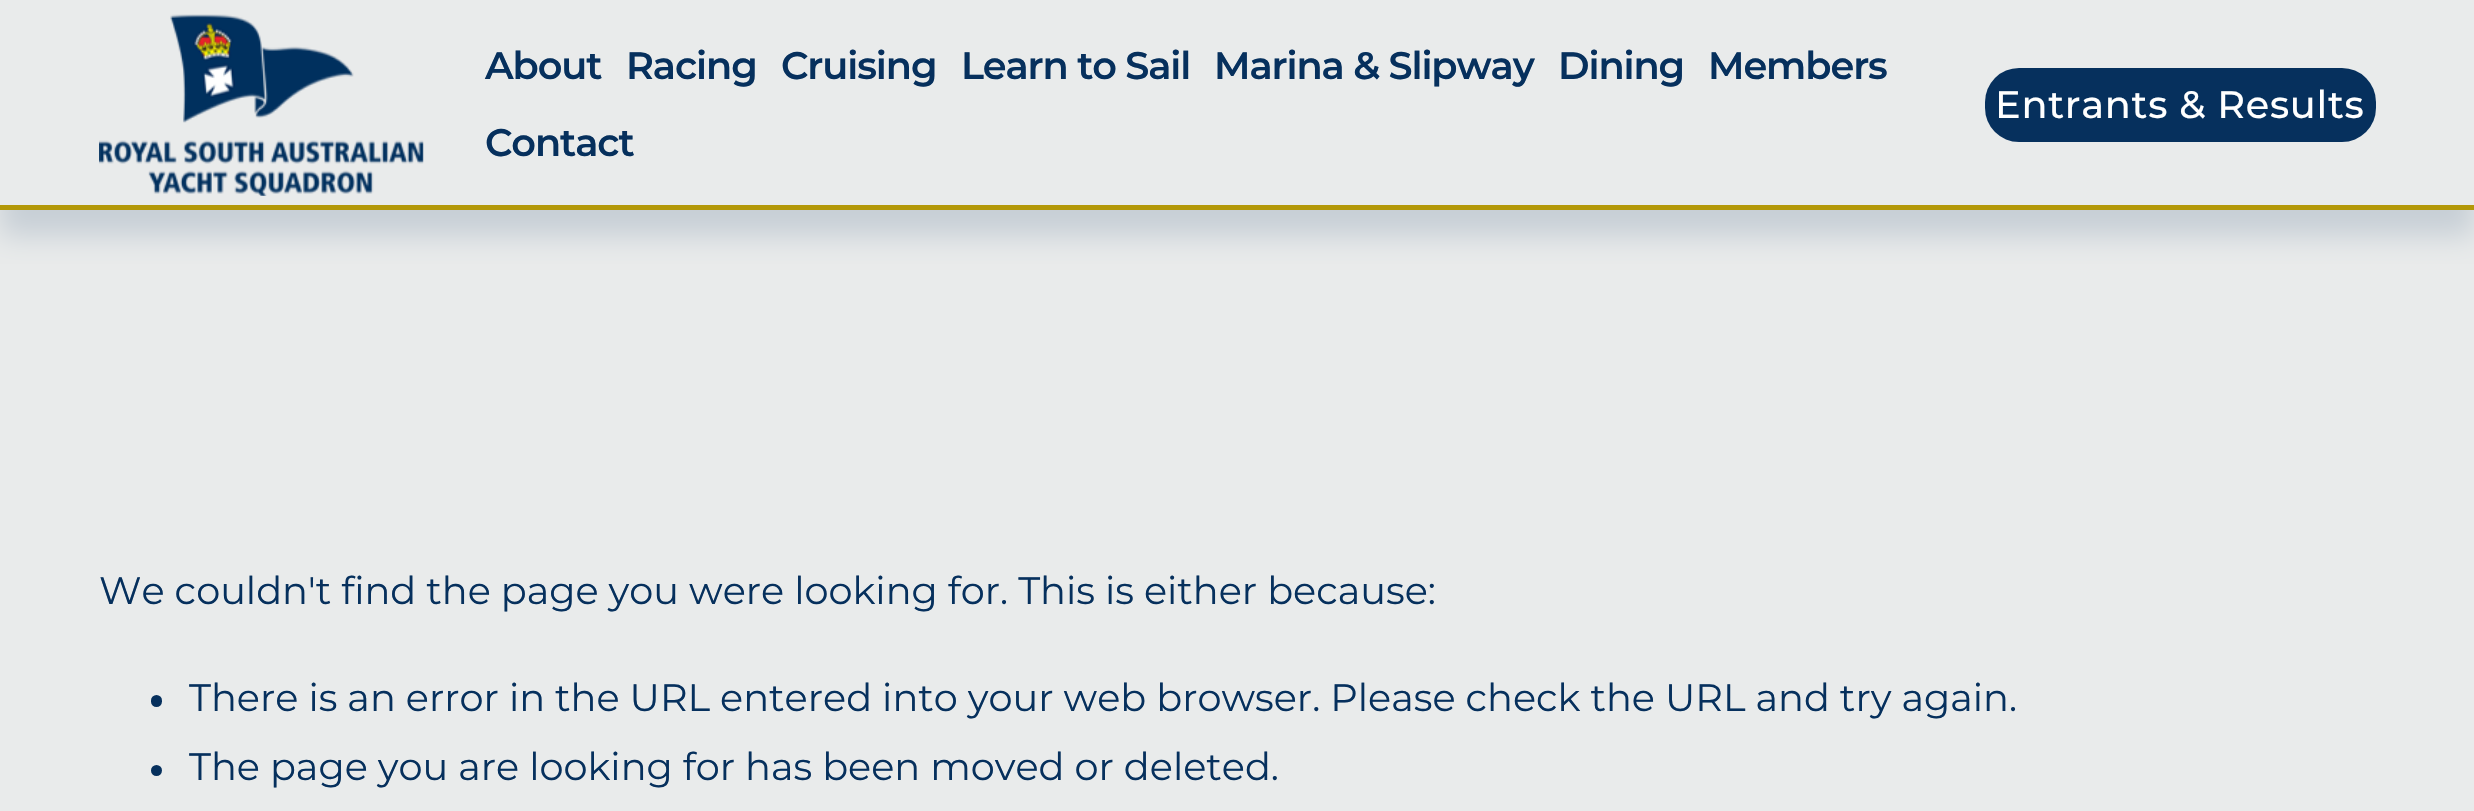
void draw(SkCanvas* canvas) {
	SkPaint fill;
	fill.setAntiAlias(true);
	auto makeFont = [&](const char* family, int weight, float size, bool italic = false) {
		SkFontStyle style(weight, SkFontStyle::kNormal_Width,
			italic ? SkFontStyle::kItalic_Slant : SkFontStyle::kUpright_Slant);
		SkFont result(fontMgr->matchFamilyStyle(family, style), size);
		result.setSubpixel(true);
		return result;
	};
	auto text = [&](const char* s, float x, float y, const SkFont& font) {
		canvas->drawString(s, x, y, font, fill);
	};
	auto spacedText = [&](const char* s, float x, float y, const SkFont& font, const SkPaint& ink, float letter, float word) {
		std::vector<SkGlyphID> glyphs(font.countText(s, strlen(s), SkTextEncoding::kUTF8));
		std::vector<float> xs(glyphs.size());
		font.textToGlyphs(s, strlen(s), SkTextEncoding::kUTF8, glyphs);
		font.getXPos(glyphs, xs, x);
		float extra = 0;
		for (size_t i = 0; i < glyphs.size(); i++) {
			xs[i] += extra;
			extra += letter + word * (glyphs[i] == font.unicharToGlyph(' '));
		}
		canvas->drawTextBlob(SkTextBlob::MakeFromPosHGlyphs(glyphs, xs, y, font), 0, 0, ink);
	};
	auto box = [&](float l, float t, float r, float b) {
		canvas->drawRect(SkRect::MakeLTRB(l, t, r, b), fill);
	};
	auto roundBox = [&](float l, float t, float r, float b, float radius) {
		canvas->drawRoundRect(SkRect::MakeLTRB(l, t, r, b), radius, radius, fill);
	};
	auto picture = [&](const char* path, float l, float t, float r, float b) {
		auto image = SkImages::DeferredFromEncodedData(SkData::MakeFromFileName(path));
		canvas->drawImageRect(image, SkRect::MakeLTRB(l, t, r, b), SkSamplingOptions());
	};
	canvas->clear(0xFFE9EBEB);
	canvas->save();
	canvas->clipRect(SkRect::MakeLTRB(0, 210, 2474, 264));
	fill.setColor(0xFFC7CFD6);
	fill.setMaskFilter(SkMaskFilter::MakeBlur(kNormal_SkBlurStyle, 13.5f));
	canvas->drawRect(SkRect::MakeLTRB(0, 27, 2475, 236), fill);
	fill.setMaskFilter(nullptr);
	canvas->restore();
	picture("image0.png", 99, 14, 424, 196);
	fill.setColor(0xFF06305D);
	roundBox(1985, 68, 2376, 142, 34);
	fill.setColor(0xFFB39808);
	box(0, 205, 2474, 210);
	fill.setColor(0xFF06305D);
	roundBox(151, 695, 162, 707, 5.5f);
	canvas->drawCircle(156.5f, 770.5f, 5.5f, fill);
	auto font1 = makeFont("Montserrat", 600, 38.25f);
	spacedText("About", 485, 79, font1, fill, -1.1f, 0);
	spacedText("Racing", 626, 79, font1, fill, -1.1f, 0);
	spacedText("Cruising", 781, 79, font1, fill, -1.1f, 0);
	spacedText("Learn to Sail", 961, 79, font1, fill, -1.1f, 0);
	spacedText("Marina & Slipway", 1214, 79, font1, fill, -1.1f, 0);
	spacedText("Dining", 1558, 79, font1, fill, -1.1f, 0);
	spacedText("Members", 1708, 79, font1, fill, -1.1f, 0);
	spacedText("Contact", 485, 156, font1, fill, -1.1f, 0);
	auto font2 = makeFont("Montserrat", 500, 38.25f);
	fill.setColor(0xFFFFFFFF);
	spacedText("Entrants & Results", 1995, 118, font2, fill, 0.75f, 0);
	auto font3 = makeFont("Montserrat", 400, 38.25f);
	fill.setColor(0xFF06305D);
	text("We couldn't find the page you were looking for. This is either because:", 99, 604, font3);
	text("There is an error in the URL entered into your web browser. Please check the URL and try again.", 189, 711, font3);
	text("The page you are looking for has been moved or deleted.", 189, 780, font3);
}
